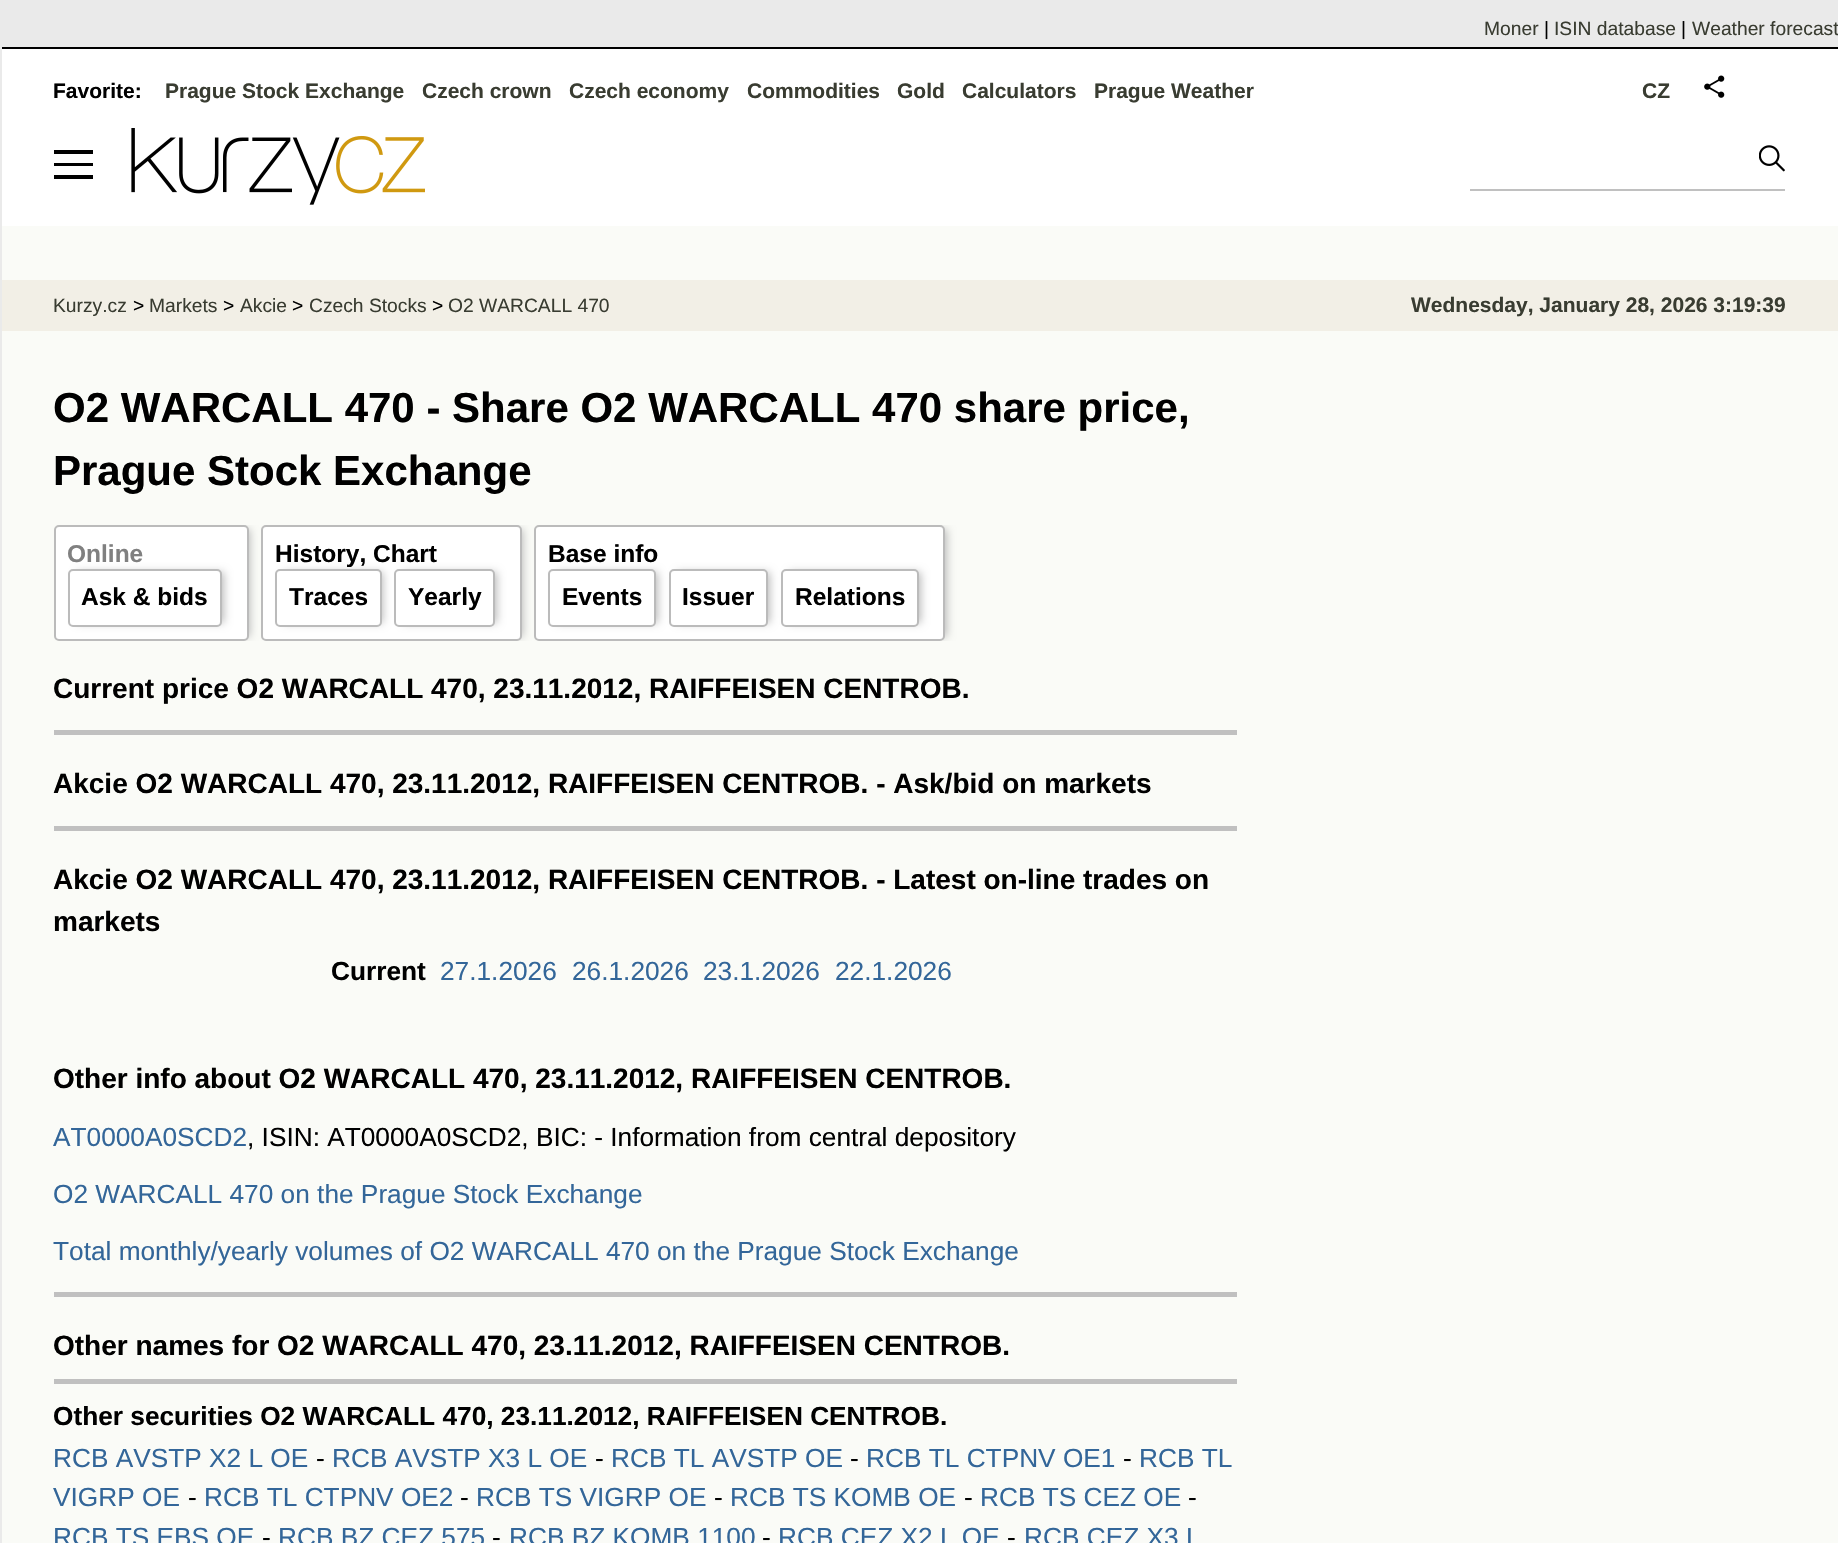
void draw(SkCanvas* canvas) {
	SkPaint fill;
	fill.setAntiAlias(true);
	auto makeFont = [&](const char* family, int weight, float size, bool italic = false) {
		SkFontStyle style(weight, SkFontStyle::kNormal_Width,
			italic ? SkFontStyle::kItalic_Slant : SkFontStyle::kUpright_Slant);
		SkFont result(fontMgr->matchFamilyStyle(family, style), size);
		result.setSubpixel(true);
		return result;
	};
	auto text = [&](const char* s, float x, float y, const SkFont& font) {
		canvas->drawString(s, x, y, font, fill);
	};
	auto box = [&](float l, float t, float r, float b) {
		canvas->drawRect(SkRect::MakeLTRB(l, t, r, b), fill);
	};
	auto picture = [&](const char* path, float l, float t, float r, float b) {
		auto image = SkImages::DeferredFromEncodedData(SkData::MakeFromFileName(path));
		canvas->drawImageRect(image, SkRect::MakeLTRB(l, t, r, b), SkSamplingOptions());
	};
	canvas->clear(0xFFEAEAEA);
	fill.setColor(0xFFFAFBF7);
	box(2, 226, 1838, 1543);
	fill.setColor(0xFF000000);
	box(2, 47, 1838, 49);
	fill.setColor(0xFFFFFFFF);
	box(2, 49, 1838, 226);
	fill.setColor(0xFF000000);
	box(54, 150, 93, 154);
	picture("image0.png", 131, 128, 425, 205);
	fill.setColor(0xFFC0C0C0);
	box(1470, 189, 1785, 191);
	picture("image1.png", 1759, 145, 1785, 172);
	fill.setColor(0xFF000000);
	box(54, 163, 93, 166);
	box(54, 175, 93, 179);
	picture("image2.png", 1704, 75, 1725, 98);
	fill.setColor(0xFFF2EFE6);
	box(2, 280, 1838, 331);
	canvas->save();
	canvas->clipRect(SkRect::MakeLTRB(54, 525, 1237, 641));
	fill.setColor(0xFFBBBBBB);
	fill.setMaskFilter(SkMaskFilter::MakeBlur(kNormal_SkBlurStyle, 4.5f));
	canvas->drawRoundRect(SkRect::MakeLTRB(63, 529, 250, 637), 2, 2, fill);
	fill.setMaskFilter(nullptr);
	canvas->restore();
	fill.setColor(0xFFFFFFFF);
	canvas->drawRoundRect(SkRect::MakeLTRB(55, 526, 248, 640), 4, 4, fill);
	fill.setStyle(SkPaint::kStroke_Style);
	fill.setStrokeWidth(2);
	fill.setColor(0xFFBBBBBB);
	canvas->drawRoundRect(SkRect::MakeLTRB(55, 526, 248, 640), 4, 4, fill);
	fill.setStyle(SkPaint::kFill_Style);
	fill.setMaskFilter(SkMaskFilter::MakeBlur(kNormal_SkBlurStyle, 4.5f));
	canvas->drawRoundRect(SkRect::MakeLTRB(77, 572, 224, 623), 2, 2, fill);
	fill.setMaskFilter(nullptr);
	fill.setColor(0xFFFFFFFF);
	canvas->drawRoundRect(SkRect::MakeLTRB(69, 570, 221, 626), 4, 4, fill);
	fill.setStyle(SkPaint::kStroke_Style);
	fill.setColor(0xFFBBBBBB);
	canvas->drawRoundRect(SkRect::MakeLTRB(69, 570, 221, 626), 4, 4, fill);
	canvas->save();
	canvas->clipRect(SkRect::MakeLTRB(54, 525, 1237, 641));
	fill.setStyle(SkPaint::kFill_Style);
	fill.setMaskFilter(SkMaskFilter::MakeBlur(kNormal_SkBlurStyle, 4.5f));
	canvas->drawRoundRect(SkRect::MakeLTRB(270, 529, 523, 637), 2, 2, fill);
	fill.setMaskFilter(nullptr);
	canvas->restore();
	fill.setColor(0xFFFFFFFF);
	canvas->drawRoundRect(SkRect::MakeLTRB(262, 526, 521, 640), 4, 4, fill);
	fill.setStyle(SkPaint::kStroke_Style);
	fill.setColor(0xFFBBBBBB);
	canvas->drawRoundRect(SkRect::MakeLTRB(262, 526, 521, 640), 4, 4, fill);
	fill.setStyle(SkPaint::kFill_Style);
	fill.setMaskFilter(SkMaskFilter::MakeBlur(kNormal_SkBlurStyle, 4.5f));
	canvas->drawRoundRect(SkRect::MakeLTRB(284, 572, 383, 623), 2, 2, fill);
	fill.setMaskFilter(nullptr);
	fill.setColor(0xFFFFFFFF);
	canvas->drawRoundRect(SkRect::MakeLTRB(276, 570, 381, 626), 4, 4, fill);
	fill.setStyle(SkPaint::kStroke_Style);
	fill.setColor(0xFFBBBBBB);
	canvas->drawRoundRect(SkRect::MakeLTRB(276, 570, 381, 626), 4, 4, fill);
	fill.setStyle(SkPaint::kFill_Style);
	fill.setMaskFilter(SkMaskFilter::MakeBlur(kNormal_SkBlurStyle, 4.5f));
	canvas->drawRoundRect(SkRect::MakeLTRB(403, 572, 497, 623), 2, 2, fill);
	fill.setMaskFilter(nullptr);
	fill.setColor(0xFFFFFFFF);
	canvas->drawRoundRect(SkRect::MakeLTRB(395, 570, 494, 626), 4, 4, fill);
	fill.setStyle(SkPaint::kStroke_Style);
	fill.setColor(0xFFBBBBBB);
	canvas->drawRoundRect(SkRect::MakeLTRB(395, 570, 494, 626), 4, 4, fill);
	canvas->save();
	canvas->clipRect(SkRect::MakeLTRB(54, 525, 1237, 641));
	fill.setStyle(SkPaint::kFill_Style);
	fill.setMaskFilter(SkMaskFilter::MakeBlur(kNormal_SkBlurStyle, 4.5f));
	canvas->drawRoundRect(SkRect::MakeLTRB(543, 529, 947, 637), 2, 2, fill);
	fill.setMaskFilter(nullptr);
	canvas->restore();
	fill.setColor(0xFFFFFFFF);
	canvas->drawRoundRect(SkRect::MakeLTRB(535, 526, 944, 640), 4, 4, fill);
	fill.setStyle(SkPaint::kStroke_Style);
	fill.setColor(0xFFBBBBBB);
	canvas->drawRoundRect(SkRect::MakeLTRB(535, 526, 944, 640), 4, 4, fill);
	fill.setStyle(SkPaint::kFill_Style);
	fill.setMaskFilter(SkMaskFilter::MakeBlur(kNormal_SkBlurStyle, 4.5f));
	canvas->drawRoundRect(SkRect::MakeLTRB(557, 572, 658, 623), 2, 2, fill);
	fill.setMaskFilter(nullptr);
	fill.setColor(0xFFFFFFFF);
	canvas->drawRoundRect(SkRect::MakeLTRB(549, 570, 655, 626), 4, 4, fill);
	fill.setStyle(SkPaint::kStroke_Style);
	fill.setColor(0xFFBBBBBB);
	canvas->drawRoundRect(SkRect::MakeLTRB(549, 570, 655, 626), 4, 4, fill);
	fill.setStyle(SkPaint::kFill_Style);
	fill.setMaskFilter(SkMaskFilter::MakeBlur(kNormal_SkBlurStyle, 4.5f));
	canvas->drawRoundRect(SkRect::MakeLTRB(677, 572, 770, 623), 2, 2, fill);
	fill.setMaskFilter(nullptr);
	fill.setColor(0xFFFFFFFF);
	canvas->drawRoundRect(SkRect::MakeLTRB(670, 570, 767, 626), 4, 4, fill);
	fill.setStyle(SkPaint::kStroke_Style);
	fill.setColor(0xFFBBBBBB);
	canvas->drawRoundRect(SkRect::MakeLTRB(670, 570, 767, 626), 4, 4, fill);
	fill.setStyle(SkPaint::kFill_Style);
	fill.setMaskFilter(SkMaskFilter::MakeBlur(kNormal_SkBlurStyle, 4.5f));
	canvas->drawRoundRect(SkRect::MakeLTRB(789, 572, 921, 623), 2, 2, fill);
	fill.setMaskFilter(nullptr);
	fill.setColor(0xFFFFFFFF);
	canvas->drawRoundRect(SkRect::MakeLTRB(782, 570, 918, 626), 4, 4, fill);
	fill.setStyle(SkPaint::kStroke_Style);
	fill.setColor(0xFFBBBBBB);
	canvas->drawRoundRect(SkRect::MakeLTRB(782, 570, 918, 626), 4, 4, fill);
	fill.setStyle(SkPaint::kFill_Style);
	fill.setColor(0xFFC0C0C0);
	box(54, 730, 1237, 735);
	box(54, 826, 1237, 831);
	box(54, 1292, 1237, 1297);
	box(54, 1379, 1237, 1384);
	auto font1 = makeFont("Liberation Sans", 400, 19.25f);
	fill.setColor(0xFF393C31);
	text("Moner", 1484, 35, font1);
	fill.setColor(0xFF000000);
	text("|", 1544, 35, font1);
	fill.setColor(0xFF393C31);
	text("ISIN database", 1554, 35, font1);
	fill.setColor(0xFF000000);
	text("|", 1681, 35, font1);
	fill.setColor(0xFF393C31);
	text("Weather forecast", 1692, 35, font1);
	auto font2 = makeFont("Liberation Sans", 700, 21);
	fill.setColor(0xFF000000);
	text("Favorite:", 53, 98, font2);
	fill.setColor(0xFF393C31);
	text("Prague Stock Exchange", 165, 98, font2);
	text("Czech crown", 422, 98, font2);
	text("Czech economy", 569, 98, font2);
	text("Commodities", 747, 98, font2);
	text("Gold", 897, 98, font2);
	text("Calculators", 962, 98, font2);
	text("Prague Weather", 1094, 98, font2);
	text("CZ", 1642, 98, font2);
	text("Kurzy.cz", 53, 312, font1);
	fill.setColor(0xFF000000);
	text(">", 133, 312, font1);
	fill.setColor(0xFF393C31);
	text("Markets", 149, 312, font1);
	fill.setColor(0xFF000000);
	text(">", 223, 312, font1);
	fill.setColor(0xFF393C31);
	text("Akcie", 240, 312, font1);
	fill.setColor(0xFF000000);
	text(">", 292, 312, font1);
	fill.setColor(0xFF393C31);
	text("Czech Stocks", 309, 312, font1);
	fill.setColor(0xFF000000);
	text(">", 432, 312, font1);
	fill.setColor(0xFF393C31);
	text("O2 WARCALL 470", 448, 312, font1);
	text("Wednesday, January 28, 2026 3:19:39", 1411, 312, font2);
	auto font3 = makeFont("Liberation Sans", 700, 42);
	fill.setColor(0xFF000000);
	text("O2 WARCALL 470 - Share O2 WARCALL 470 share price,", 53, 422, font3);
	text("Prague Stock Exchange", 53, 485, font3);
	auto font4 = makeFont("Liberation Sans", 700, 24.5f);
	fill.setColor(0xFF808080);
	text("Online", 67, 562, font4);
	fill.setColor(0xFF000000);
	text("Ask & bids", 81, 605, font4);
	text("History, Chart", 275, 562, font4);
	text("Traces", 289, 605, font4);
	text("Yearly", 408, 605, font4);
	text("Base info", 548, 562, font4);
	text("Events", 562, 605, font4);
	text("Issuer", 682, 605, font4);
	text("Relations", 795, 605, font4);
	auto font5 = makeFont("Liberation Sans", 700, 28);
	text("Current price O2 WARCALL 470, 23.11.2012, RAIFFEISEN CENTROB.", 53, 698, font5);
	text("Akcie O2 WARCALL 470, 23.11.2012, RAIFFEISEN CENTROB. - Ask/bid on markets", 53, 793, font5);
	text("Akcie O2 WARCALL 470, 23.11.2012, RAIFFEISEN CENTROB. - Latest on-line trades on", 53, 889, font5);
	text("markets", 53, 931, font5);
	auto font6 = makeFont("Liberation Sans", 700, 26.25f);
	text("Current", 331, 980, font6);
	auto font7 = makeFont("Liberation Sans", 400, 26.25f);
	fill.setColor(0xFF336699);
	text("27.1.2026", 440, 980, font7);
	text("26.1.2026", 572, 980, font7);
	text("23.1.2026", 703, 980, font7);
	text("22.1.2026", 835, 980, font7);
	fill.setColor(0xFF000000);
	text("Other info about O2 WARCALL 470, 23.11.2012, RAIFFEISEN CENTROB.", 53, 1088, font5);
	fill.setColor(0xFF336699);
	text("AT0000A0SCD2", 53, 1146, font7);
	fill.setColor(0xFF000000);
	text(", ISIN: AT0000A0SCD2, BIC: - Information from central depository", 247, 1146, font7);
	fill.setColor(0xFF336699);
	text("O2 WARCALL 470 on the Prague Stock Exchange", 53, 1203, font7);
	text("Total monthly/yearly volumes of O2 WARCALL 470 on the Prague Stock Exchange", 53, 1260, font7);
	fill.setColor(0xFF000000);
	text("Other names for O2 WARCALL 470, 23.11.2012, RAIFFEISEN CENTROB.", 53, 1355, font5);
	text("Other securities O2 WARCALL 470, 23.11.2012, RAIFFEISEN CENTROB.", 53, 1425, font6);
	fill.setColor(0xFF336699);
	text("RCB AVSTP X2 L OE", 53, 1467, font7);
	fill.setColor(0xFF000000);
	text("-", 316, 1467, font7);
	fill.setColor(0xFF336699);
	text("RCB AVSTP X3 L OE", 332, 1467, font7);
	fill.setColor(0xFF000000);
	text("-", 595, 1467, font7);
	fill.setColor(0xFF336699);
	text("RCB TL AVSTP OE", 611, 1467, font7);
	fill.setColor(0xFF000000);
	text("-", 850, 1467, font7);
	fill.setColor(0xFF336699);
	text("RCB TL CTPNV OE1", 866, 1467, font7);
	fill.setColor(0xFF000000);
	text("-", 1123, 1467, font7);
	fill.setColor(0xFF336699);
	text("RCB TL", 1139, 1467, font7);
	text("VIGRP OE", 53, 1506, font7);
	fill.setColor(0xFF000000);
	text("-", 188, 1506, font7);
	fill.setColor(0xFF336699);
	text("RCB TL CTPNV OE2", 204, 1506, font7);
	fill.setColor(0xFF000000);
	text("-", 460, 1506, font7);
	fill.setColor(0xFF336699);
	text("RCB TS VIGRP OE", 476, 1506, font7);
	fill.setColor(0xFF000000);
	text("-", 714, 1506, font7);
	fill.setColor(0xFF336699);
	text("RCB TS KOMB OE", 730, 1506, font7);
	fill.setColor(0xFF000000);
	text("-", 964, 1506, font7);
	fill.setColor(0xFF336699);
	text("RCB TS CEZ OE", 980, 1506, font7);
	fill.setColor(0xFF000000);
	text("-", 1188, 1506, font7);
	fill.setColor(0xFF336699);
	text("RCB TS EBS OE", 53, 1546, font7);
	fill.setColor(0xFF000000);
	text("-", 262, 1546, font7);
	fill.setColor(0xFF336699);
	text("RCB BZ CEZ 575", 278, 1546, font7);
	fill.setColor(0xFF000000);
	text("-", 492, 1546, font7);
	fill.setColor(0xFF336699);
	text("RCB BZ KOMB 1100", 509, 1546, font7);
	fill.setColor(0xFF000000);
	text("-", 762, 1546, font7);
	fill.setColor(0xFF336699);
	text("RCB CEZ X2 L OE", 778, 1546, font7);
	fill.setColor(0xFF000000);
	text("-", 1007, 1546, font7);
	fill.setColor(0xFF336699);
	text("RCB CEZ X3 L", 1024, 1546, font7);
}
